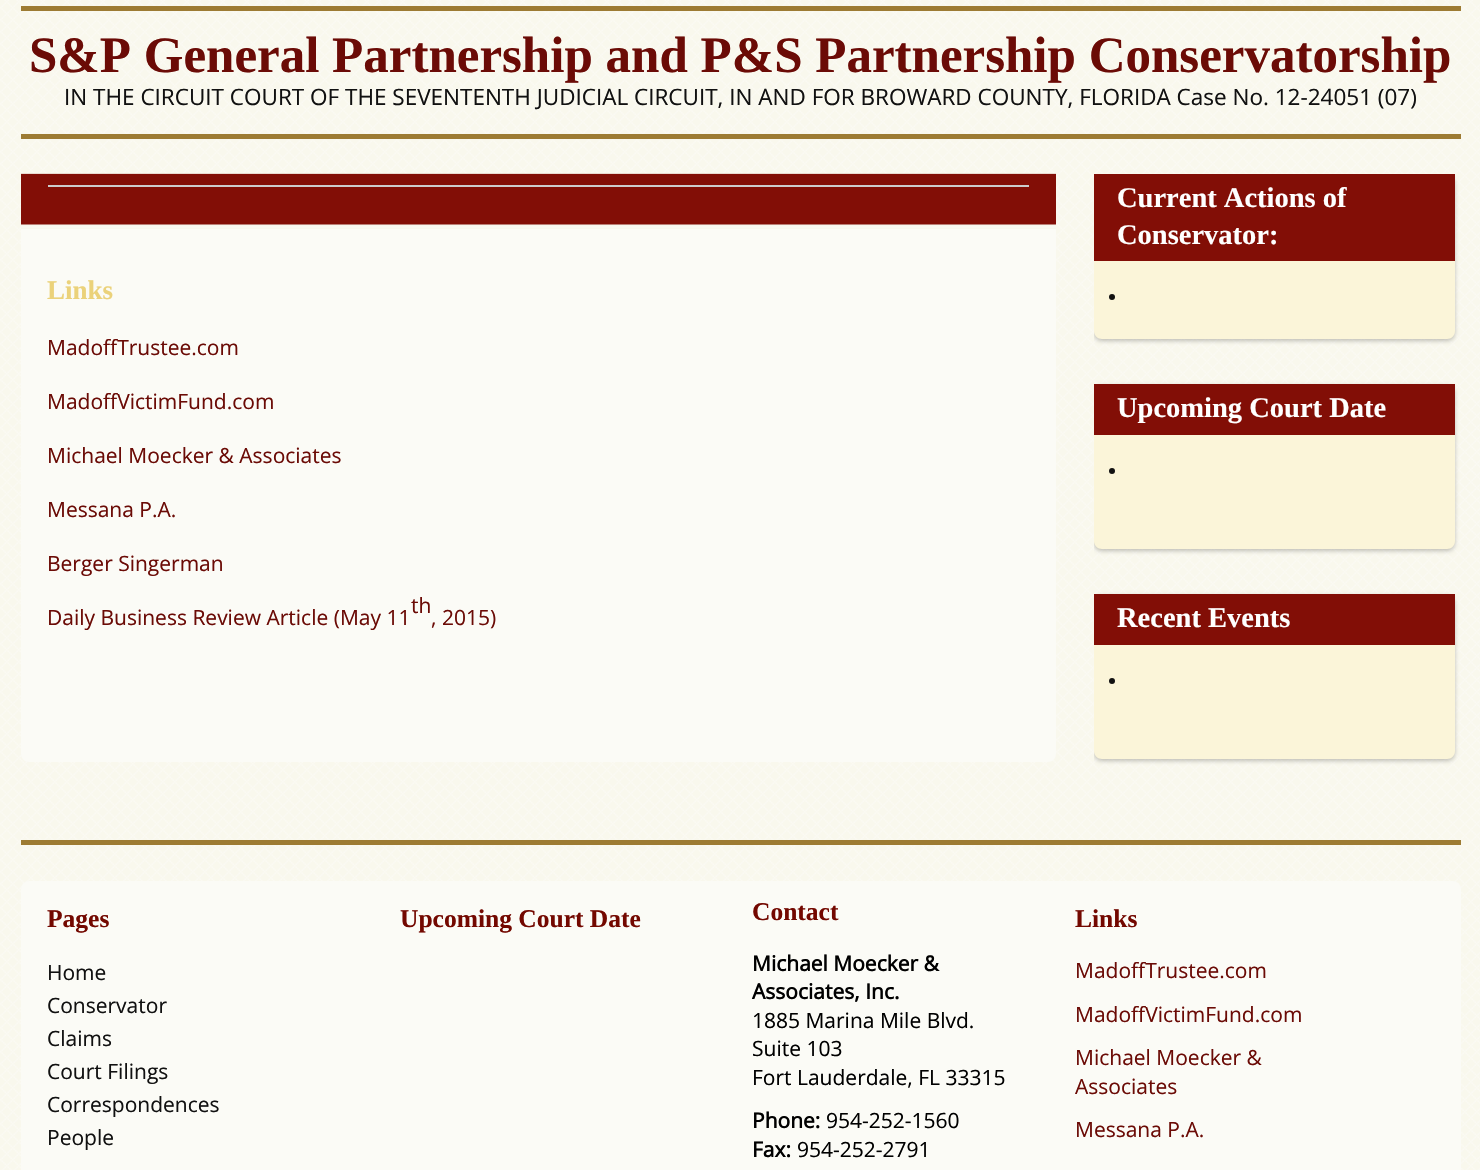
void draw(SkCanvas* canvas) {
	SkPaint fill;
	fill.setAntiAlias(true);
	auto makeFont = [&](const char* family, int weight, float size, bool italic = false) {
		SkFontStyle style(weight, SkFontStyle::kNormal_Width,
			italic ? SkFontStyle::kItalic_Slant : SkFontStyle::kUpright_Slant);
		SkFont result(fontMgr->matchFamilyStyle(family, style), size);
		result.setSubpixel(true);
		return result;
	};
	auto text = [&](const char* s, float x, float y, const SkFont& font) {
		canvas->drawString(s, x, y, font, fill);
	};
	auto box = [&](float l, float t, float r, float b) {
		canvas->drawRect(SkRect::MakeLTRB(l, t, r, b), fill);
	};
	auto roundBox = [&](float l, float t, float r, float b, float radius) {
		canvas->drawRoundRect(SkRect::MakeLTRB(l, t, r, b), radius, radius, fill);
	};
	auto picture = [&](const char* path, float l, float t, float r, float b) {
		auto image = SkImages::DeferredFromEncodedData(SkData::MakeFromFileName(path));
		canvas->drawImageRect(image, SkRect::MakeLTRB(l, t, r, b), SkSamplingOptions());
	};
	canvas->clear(0xFFFFFFFF);
	picture("image0.png", 0, 0, 1480, 1170);
	fill.setColor(0xFF9D7B33);
	box(21, 6, 1461, 11);
	box(21, 134, 1461, 139);
	fill.setColor(0xFFFBFBF6);
	canvas->drawPath(SkPathBuilder().moveTo(21, 174).lineTo(1056, 174).lineTo(1056, 754).cubicTo(1056, 758.5f, 1052.5f, 762, 1048, 762).lineTo(29, 762).cubicTo(24.5f, 762, 21, 758.5f, 21, 754).close().detach(), fill);
	picture("image1.png", 21, 173, 1056, 229);
	fill.setColor(0xFFCCCCCC);
	box(48, 185, 1029, 187);
	canvas->save();
	canvas->clipRect(SkRect::MakeLTRB(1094, 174, 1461, 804));
	fill.setColor(0x3B000000);
	fill.setMaskFilter(SkMaskFilter::MakeBlur(kNormal_SkBlurStyle, 2));
	canvas->drawRoundRect(SkRect::MakeLTRB(1094, 176, 1455, 341), 8, 8, fill);
	fill.setMaskFilter(nullptr);
	canvas->restore();
	fill.setColor(0xFFFBF5D9);
	canvas->drawPath(SkPathBuilder().moveTo(1094, 174).lineTo(1455, 174).lineTo(1455, 331).cubicTo(1455, 335.5f, 1451.5f, 339, 1447, 339).lineTo(1102, 339).cubicTo(1097.5f, 339, 1094, 335.5f, 1094, 331).close().detach(), fill);
	fill.setColor(0xFF820E06);
	box(1094, 174, 1455, 261);
	fill.setColor(0xFF111111);
	canvas->drawCircle(1112, 297, 3, fill);
	canvas->save();
	canvas->clipRect(SkRect::MakeLTRB(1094, 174, 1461, 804));
	fill.setColor(0x3B000000);
	fill.setMaskFilter(SkMaskFilter::MakeBlur(kNormal_SkBlurStyle, 2));
	canvas->drawRoundRect(SkRect::MakeLTRB(1094, 386, 1455, 551), 8, 8, fill);
	fill.setMaskFilter(nullptr);
	canvas->restore();
	fill.setColor(0xFFFBF5D9);
	canvas->drawPath(SkPathBuilder().moveTo(1094, 384).lineTo(1455, 384).lineTo(1455, 541).cubicTo(1455, 545.5f, 1451.5f, 549, 1447, 549).lineTo(1102, 549).cubicTo(1097.5f, 549, 1094, 545.5f, 1094, 541).close().detach(), fill);
	fill.setColor(0xFF820E06);
	box(1094, 384, 1455, 435);
	fill.setColor(0xFF111111);
	canvas->drawCircle(1112, 471, 3, fill);
	canvas->save();
	canvas->clipRect(SkRect::MakeLTRB(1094, 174, 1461, 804));
	fill.setColor(0x3B000000);
	fill.setMaskFilter(SkMaskFilter::MakeBlur(kNormal_SkBlurStyle, 2));
	canvas->drawRoundRect(SkRect::MakeLTRB(1094, 596, 1455, 761), 8, 8, fill);
	fill.setMaskFilter(nullptr);
	canvas->restore();
	fill.setColor(0xFFFBF5D9);
	canvas->drawPath(SkPathBuilder().moveTo(1094, 594).lineTo(1455, 594).lineTo(1455, 751).cubicTo(1455, 755.5f, 1451.5f, 759, 1447, 759).lineTo(1102, 759).cubicTo(1097.5f, 759, 1094, 755.5f, 1094, 751).close().detach(), fill);
	fill.setColor(0xFF820E06);
	box(1094, 594, 1455, 645);
	fill.setColor(0xFF111111);
	canvas->drawCircle(1112, 681, 3, fill);
	fill.setColor(0xFF9D7B33);
	box(21, 840, 1461, 845);
	fill.setColor(0xFFFBFBF6);
	roundBox(21, 881, 1461, 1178, 8);
	auto font1 = makeFont("Tinos", 700, 51);
	fill.setColor(0xFF6B0B06);
	text("S&P General Partnership and P&S Partnership Conservatorship", 29, 72, font1);
	auto font2 = makeFont("Open Sans", 400, 22.5f);
	fill.setColor(0xFF111111);
	text("IN THE CIRCUIT COURT OF THE SEVENTENTH JUDICIAL CIRCUIT, IN AND FOR BROWARD COUNTY, FLORIDA Case No. 12-24051 (07)", 64, 105, font2);
	auto font3 = makeFont("Tinos", 700, 27);
	fill.setColor(0xFFEBD27A);
	text("Links", 47, 299, font3);
	auto font4 = makeFont("Open Sans", 400, 21);
	fill.setColor(0xFF6B0B06);
	text("MadoffTrustee.com", 47, 355, font4);
	text("MadoffVictimFund.com", 47, 409, font4);
	text("Michael Moecker & Associates", 47, 463, font4);
	text("Messana P.A.", 47, 517, font4);
	text("Berger Singerman", 47, 571, font4);
	text("th", 411, 613, font4);
	text("Daily Business Review Article (May 11", 47, 625, font4);
	text(", 2015)", 431, 625, font4);
	auto font5 = makeFont("Tinos", 700, 28.5f);
	fill.setColor(0xFFFFFFFF);
	text("Current Actions of", 1117, 207, font5);
	text("Conservator:", 1117, 244, font5);
	text("Upcoming Court Date", 1117, 417, font5);
	text("Recent Events", 1117, 627, font5);
	auto font6 = makeFont("Tinos", 700, 25.5f);
	fill.setColor(0xFF730800);
	text("Pages", 47, 927, font6);
	fill.setColor(0xFF111111);
	text("Home", 47, 980, font4);
	text("Conservator", 47, 1013, font4);
	text("Claims", 47, 1046, font4);
	text("Court Filings", 47, 1079, font4);
	text("Correspondences", 47, 1112, font4);
	text("People", 47, 1145, font4);
	fill.setColor(0xFF730800);
	text("Upcoming Court Date", 400, 927, font6);
	text("Contact", 752, 920, font6);
	auto font7 = makeFont("Open Sans", 700, 21);
	fill.setColor(0xFF000000);
	text("Michael Moecker &", 752, 971, font7);
	text("Associates, Inc.", 752, 999, font7);
	text("1885 Marina Mile Blvd.", 752, 1028, font4);
	text("Suite 103", 752, 1056, font4);
	text("Fort Lauderdale, FL 33315", 752, 1085, font4);
	text("Phone:", 752, 1128, font7);
	text("954-252-1560", 826, 1128, font4);
	text("Fax:", 752, 1157, font7);
	text("954-252-2791", 797, 1157, font4);
	fill.setColor(0xFF730800);
	text("Links", 1075, 927, font6);
	fill.setColor(0xFF6B0B06);
	text("MadoffTrustee.com", 1075, 978, font4);
	text("MadoffVictimFund.com", 1075, 1022, font4);
	text("Michael Moecker &", 1075, 1065, font4);
	text("Associates", 1075, 1094, font4);
	text("Messana P.A.", 1075, 1137, font4);
}
